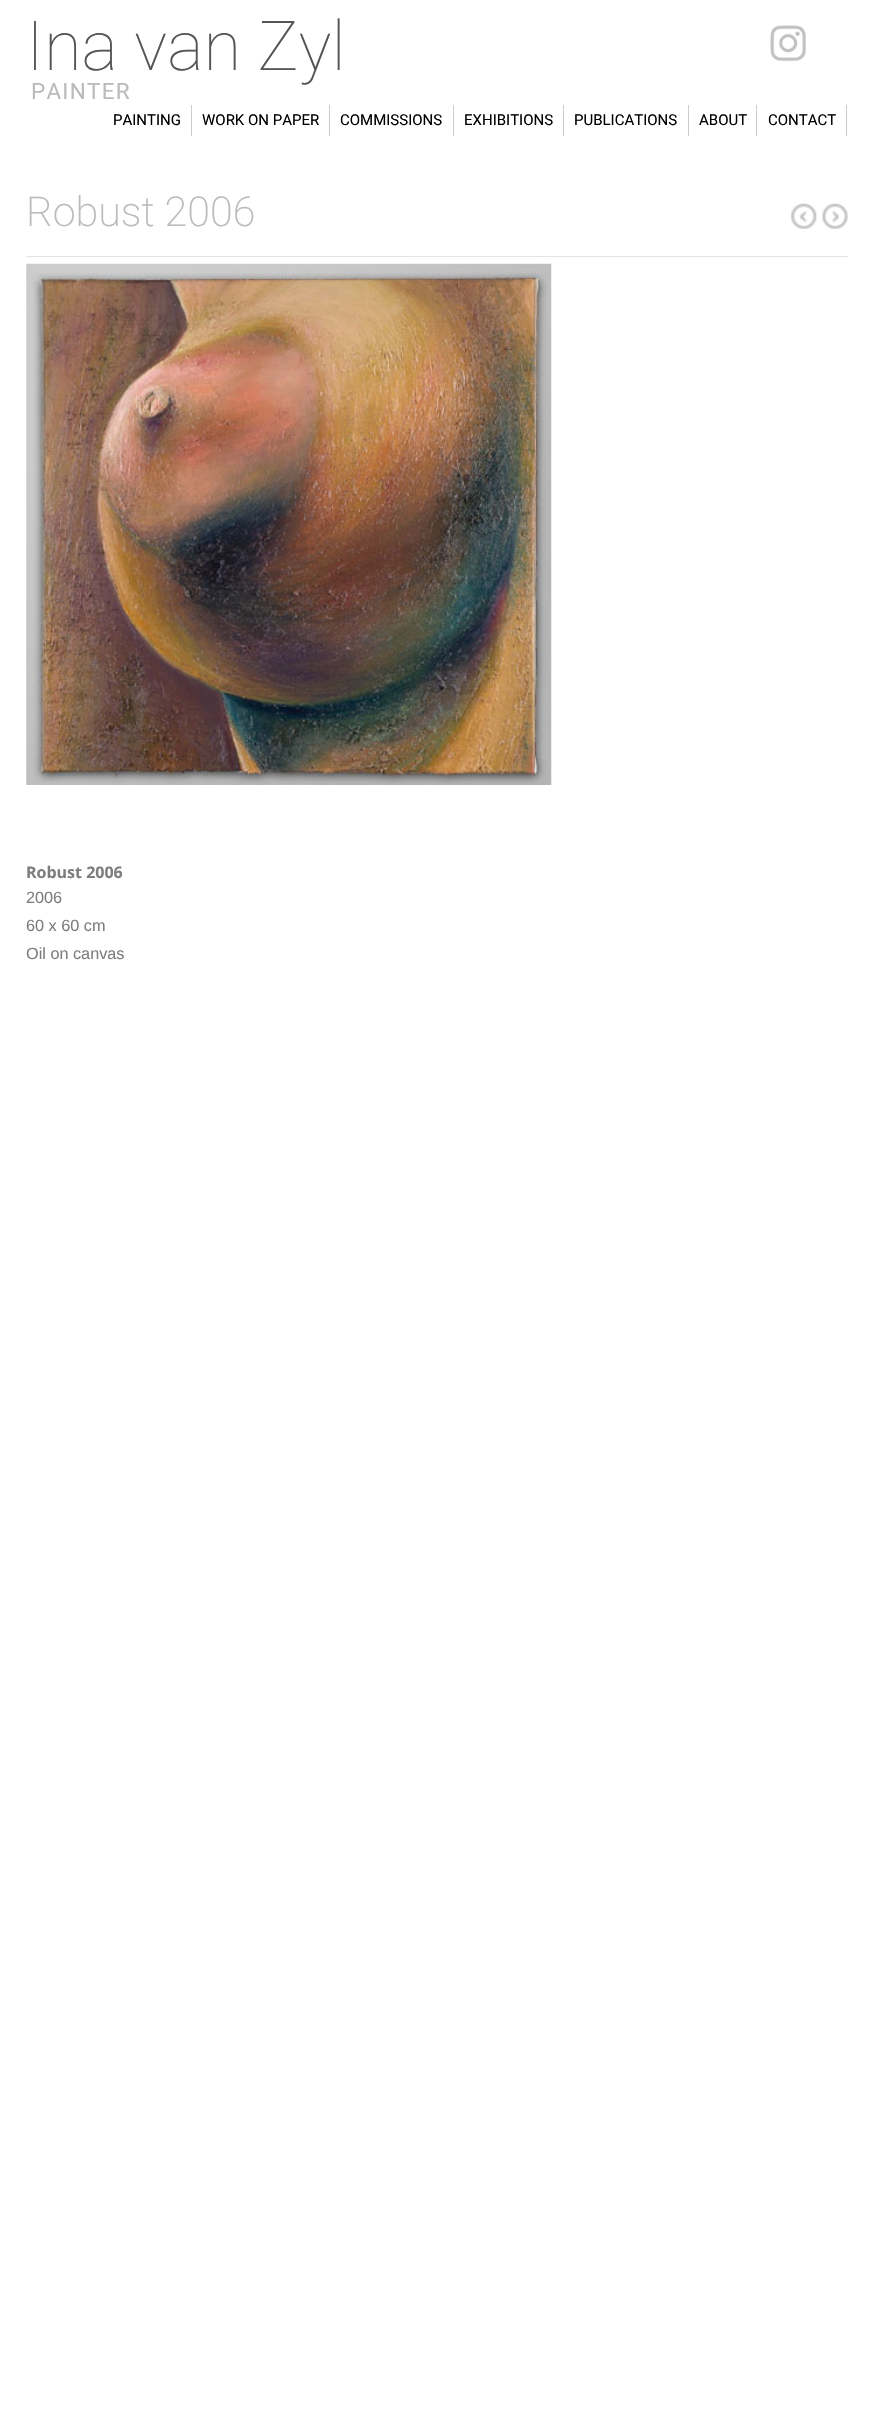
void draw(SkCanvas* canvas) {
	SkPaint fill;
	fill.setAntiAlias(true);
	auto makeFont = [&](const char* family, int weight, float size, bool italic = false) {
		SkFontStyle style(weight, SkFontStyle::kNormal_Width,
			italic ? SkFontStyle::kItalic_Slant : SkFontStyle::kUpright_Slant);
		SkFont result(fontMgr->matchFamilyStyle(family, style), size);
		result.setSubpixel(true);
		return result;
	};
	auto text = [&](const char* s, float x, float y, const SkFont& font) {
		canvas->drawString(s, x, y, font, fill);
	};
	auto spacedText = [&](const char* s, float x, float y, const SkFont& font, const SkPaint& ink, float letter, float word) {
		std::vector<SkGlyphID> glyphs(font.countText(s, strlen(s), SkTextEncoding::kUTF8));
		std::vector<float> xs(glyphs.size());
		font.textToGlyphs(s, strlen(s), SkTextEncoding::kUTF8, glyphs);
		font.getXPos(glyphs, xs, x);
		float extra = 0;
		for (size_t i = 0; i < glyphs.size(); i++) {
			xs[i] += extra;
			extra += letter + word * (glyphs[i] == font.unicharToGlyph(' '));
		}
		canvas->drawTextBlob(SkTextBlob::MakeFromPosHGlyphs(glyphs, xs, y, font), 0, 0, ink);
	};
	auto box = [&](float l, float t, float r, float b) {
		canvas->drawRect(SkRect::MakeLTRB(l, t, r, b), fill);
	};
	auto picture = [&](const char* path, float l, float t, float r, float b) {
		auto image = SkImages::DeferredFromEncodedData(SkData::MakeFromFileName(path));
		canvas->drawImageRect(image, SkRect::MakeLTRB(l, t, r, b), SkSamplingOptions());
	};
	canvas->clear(0xFFFFFFFF);
	picture("image0.png", 770, 25, 806, 62);
	fill.setColor(0xFFCCCCCC);
	box(191, 105, 192, 136);
	box(329, 105, 330, 136);
	box(453, 105, 454, 136);
	box(563, 105, 564, 136);
	box(688, 105, 689, 136);
	box(756, 105, 757, 136);
	box(846, 105, 847, 136);
	fill.setColor(0xFFE4E4E4);
	box(26, 256, 848, 257);
	picture("image1.png", 791, 203, 817, 229);
	picture("image2.png", 791, 203, 817, 229);
	picture("image3.png", 822, 203, 848, 229);
	picture("image4.png", 822, 203, 848, 229);
	picture("image5.png", 26, 263, 552, 785);
	auto font1 = makeFont("Roboto", 100, 68.75f);
	fill.setColor(0xFF555555);
	text("Ina van Zyl", 26, 70, font1);
	auto font2 = makeFont("Roboto", 400, 22.5f);
	fill.setColor(0xFFBBBBBB);
	spacedText("PAINTER", 31, 99, font2, fill, 1.25f, 0);
	auto font3 = makeFont("Roboto", 400, 15);
	fill.setColor(0xFF000000);
	text("PAINTING", 113, 125, font3);
	text("WORK ON PAPER", 202, 125, font3);
	text("COMMISSIONS", 340, 125, font3);
	text("EXHIBITIONS", 464, 125, font3);
	text("PUBLICATIONS", 574, 125, font3);
	text("ABOUT", 699, 125, font3);
	text("CONTACT", 768, 125, font3);
	auto font4 = makeFont("Roboto", 200, 41.25f);
	fill.setColor(0xFFBBBBBB);
	text("Robust 2006", 26, 226, font4);
	auto font5 = makeFont("Open Sans", 700, 16);
	fill.setColor(0xFF7D7D7B);
	text("Robust 2006", 26, 878, font5);
	auto font6 = makeFont("Liberation Sans", 400, 16.25f);
	text("2006", 26, 903, font6);
	text("60 x 60 cm", 26, 931, font6);
	text("Oil on canvas", 26, 959, font6);
}
